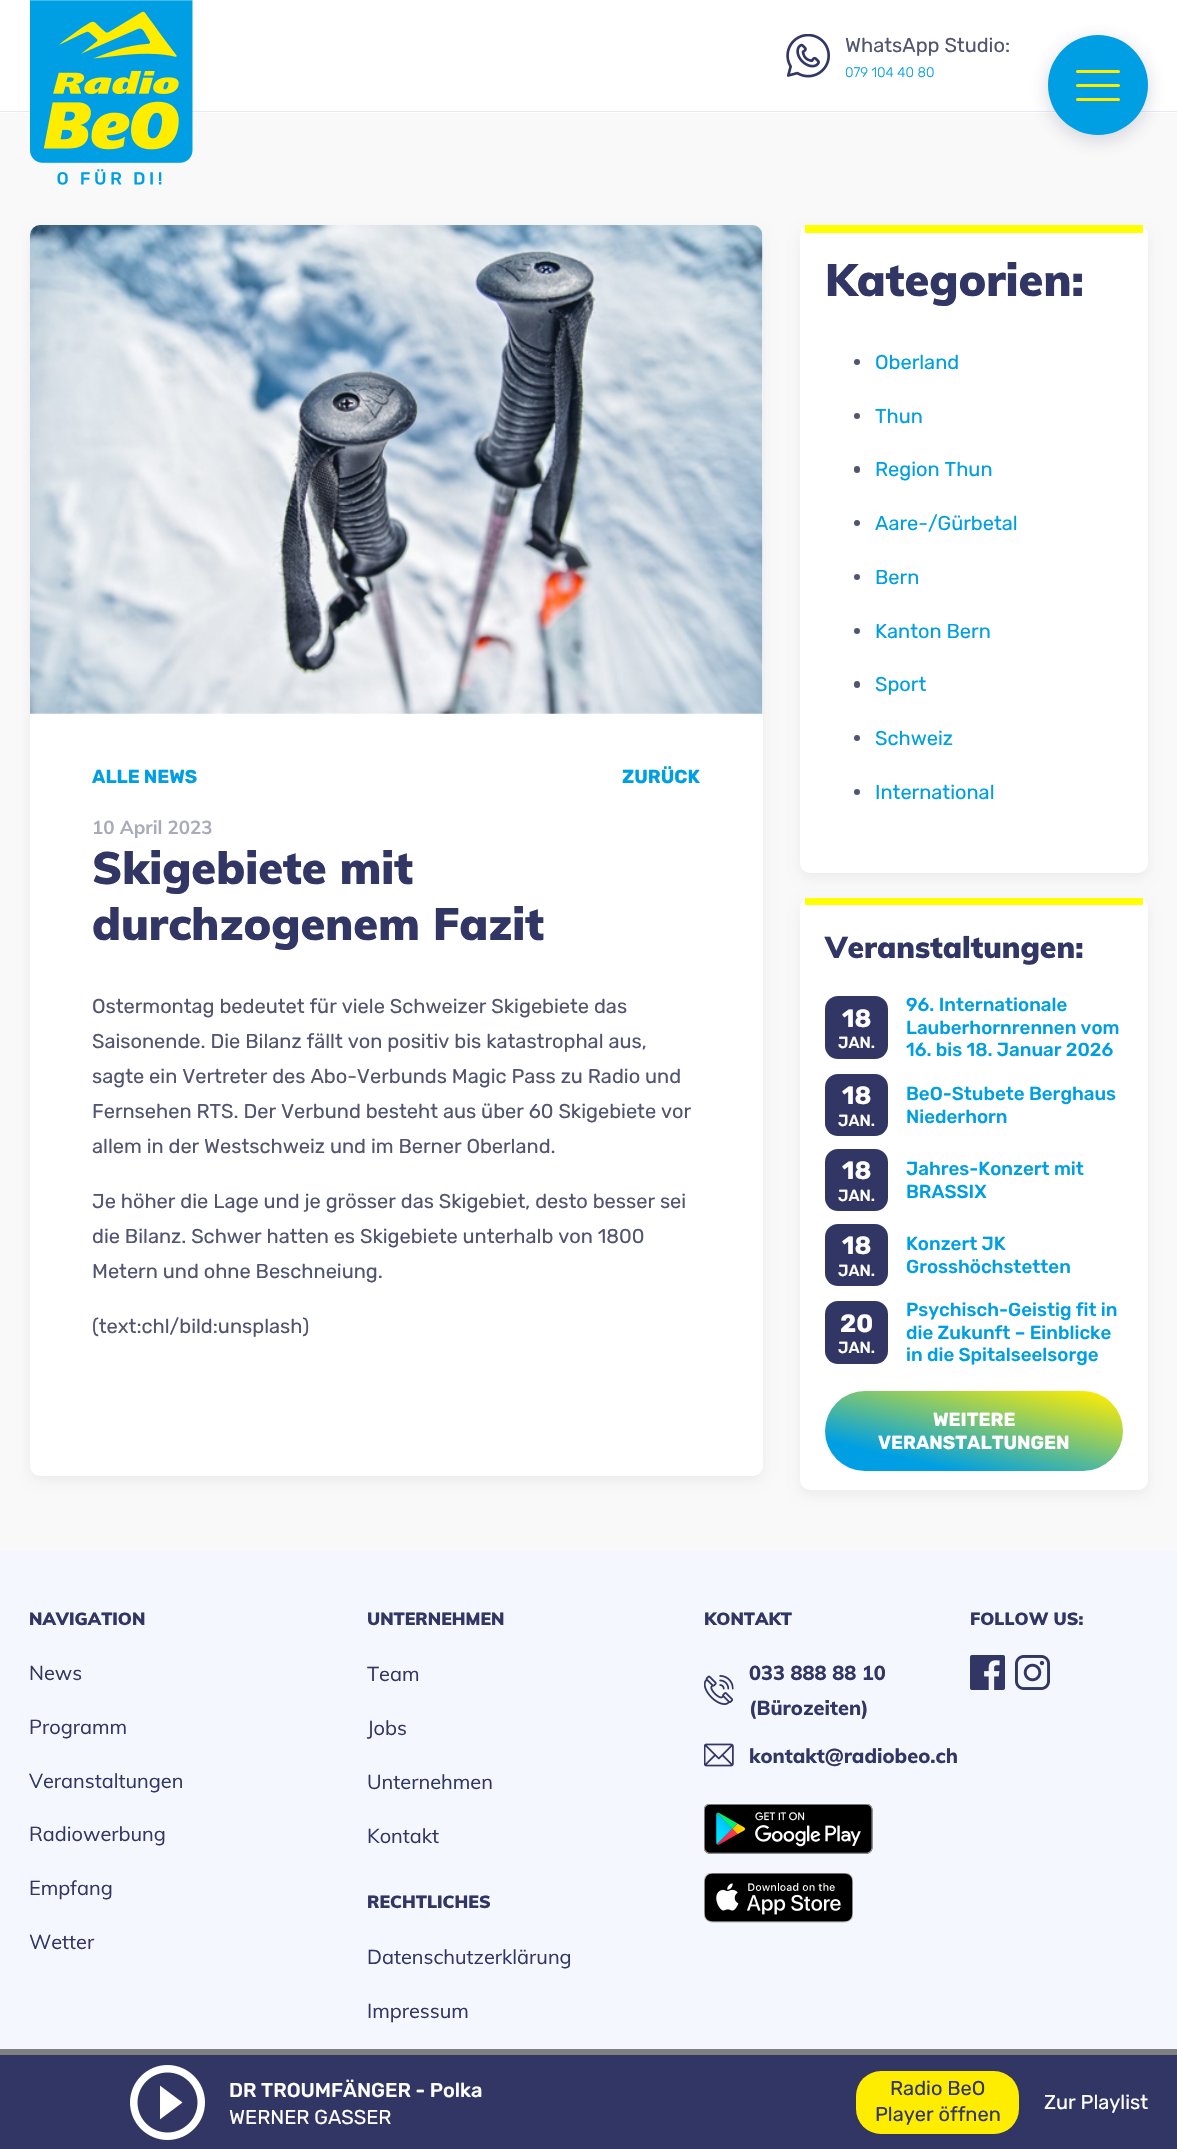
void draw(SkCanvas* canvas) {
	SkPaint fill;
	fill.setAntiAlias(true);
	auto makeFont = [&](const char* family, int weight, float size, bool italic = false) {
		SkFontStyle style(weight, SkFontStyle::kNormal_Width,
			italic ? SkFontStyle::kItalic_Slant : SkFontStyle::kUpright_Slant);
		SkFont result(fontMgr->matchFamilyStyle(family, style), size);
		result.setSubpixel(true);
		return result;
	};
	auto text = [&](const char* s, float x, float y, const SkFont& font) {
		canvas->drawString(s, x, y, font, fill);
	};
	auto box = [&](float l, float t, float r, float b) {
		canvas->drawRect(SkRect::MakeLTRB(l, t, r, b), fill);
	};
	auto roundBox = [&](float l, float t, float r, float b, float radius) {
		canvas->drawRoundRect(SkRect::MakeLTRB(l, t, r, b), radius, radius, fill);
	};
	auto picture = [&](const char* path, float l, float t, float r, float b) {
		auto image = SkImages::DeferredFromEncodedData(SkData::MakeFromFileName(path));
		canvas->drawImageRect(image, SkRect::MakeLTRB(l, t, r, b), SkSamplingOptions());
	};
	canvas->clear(0xFFF9F9F9);
	fill.setColor(0xFFFFFFFF);
	box(0, 0, 1177, 113);
	fill.setColor(0xFFE5E8F8);
	box(0, 111, 1177, 112);
	picture("image0.png", 30, 0, 193, 185);
	picture("image1.png", 786, 34, 830, 78);
	fill.setColor(0x33313664);
	fill.setMaskFilter(SkMaskFilter::MakeBlur(kNormal_SkBlurStyle, 9.5f));
	canvas->drawRoundRect(SkRect::MakeLTRB(1048, 40, 1148, 140), 50, 50, fill);
	fill.setMaskFilter(nullptr);
	fill.setColor(0xFF009FE3);
	canvas->drawCircle(1098, 85, 50, fill);
	fill.setColor(0xFFFFED00);
	roundBox(1076, 84, 1120, 87, 1.5f);
	roundBox(1076, 70, 1120, 73, 1.5f);
	roundBox(1076, 98, 1120, 101, 1.5f);
	fill.setColor(0x0D000000);
	fill.setMaskFilter(SkMaskFilter::MakeBlur(kNormal_SkBlurStyle, 6));
	canvas->drawRoundRect(SkRect::MakeLTRB(30, 230, 763, 1481), 10, 10, fill);
	fill.setMaskFilter(nullptr);
	fill.setColor(0xFFFFFFFF);
	roundBox(30, 225, 763, 1476, 10);
	picture("image2.png", 30, 225, 763, 714);
	fill.setColor(0x0D000000);
	fill.setMaskFilter(SkMaskFilter::MakeBlur(kNormal_SkBlurStyle, 6));
	canvas->drawRoundRect(SkRect::MakeLTRB(800, 230, 1148, 878), 10, 10, fill);
	fill.setMaskFilter(nullptr);
	fill.setColor(0xFFFFFFFF);
	roundBox(800, 225, 1148, 873, 10);
	fill.setColor(0xFFFFFF00);
	box(805, 225, 1143, 233);
	fill.setColor(0xFF525571);
	canvas->drawCircle(857, 362, 3, fill);
	canvas->drawCircle(857, 416, 3, fill);
	roundBox(854, 466, 860, 473, 3);
	canvas->drawCircle(857, 523, 3, fill);
	canvas->drawCircle(857, 577, 3, fill);
	canvas->drawCircle(857, 631, 3, fill);
	roundBox(854, 681, 860, 688, 3);
	canvas->drawCircle(857, 738, 3, fill);
	canvas->drawCircle(857, 792, 3, fill);
	fill.setColor(0x0D000000);
	fill.setMaskFilter(SkMaskFilter::MakeBlur(kNormal_SkBlurStyle, 6));
	canvas->drawRoundRect(SkRect::MakeLTRB(800, 903, 1148, 1495), 10, 10, fill);
	fill.setMaskFilter(nullptr);
	fill.setColor(0xFFFFFFFF);
	roundBox(800, 898, 1148, 1490, 10);
	fill.setColor(0xFFFFFF00);
	box(805, 898, 1143, 905);
	fill.setColor(0xFF313664);
	roundBox(825, 996, 888, 1059, 13);
	roundBox(825, 1074, 888, 1136, 13);
	roundBox(825, 1149, 888, 1211, 13);
	roundBox(825, 1224, 888, 1286, 13);
	roundBox(825, 1301, 888, 1364, 13);
	{
		const SkColor colors[] = {0xFF009FE3, 0xFFFFED00};
		const float stops[] = {0.21f, 0.97f};
		const SkPoint ends[] = {{957, 1503}, {991, 1360}};
		fill.setShader(SkGradientShader::MakeLinear(ends, colors, stops, 2, SkTileMode::kClamp));
		fill.setAlpha(255);
	}
	roundBox(825, 1391, 1123, 1471, 40);
	fill.setShader(nullptr);
	fill.setColor(0xFFF5F7FF);
	box(0, 1551, 1177, 2049);
	picture("image3.png", 704, 1675, 734, 1705);
	picture("image4.png", 704, 1743, 734, 1767);
	picture("image5.png", 704, 1804, 873, 1854);
	picture("image6.png", 704, 1873, 853, 1923);
	picture("image7.png", 970, 1655, 1005, 1690);
	picture("image8.png", 1015, 1655, 1050, 1690);
	fill.setColor(0xFF313664);
	box(0, 2055, 1177, 2149);
	fill.setColor(0xFF808080);
	box(0, 2049, 1177, 2055);
	picture("image9.png", 130, 2065, 205, 2140);
	fill.setColor(0xFFFFED00);
	roundBox(856, 2071, 1019, 2134, 25);
	auto font1 = makeFont("Rubik", 400, 20);
	fill.setColor(0xFF525571);
	text("WhatsApp Studio:", 845, 52, font1);
	auto font2 = makeFont("Rubik", 300, 13.75f);
	fill.setColor(0xFF009FE3);
	text("079 104 40 80", 845, 77, font2);
	auto font3 = makeFont("Rubik", 700, 18.75f);
	text("ALLE NEWS", 92, 783, font3);
	text("ZURÜCK", 622, 783, font3);
	auto font4 = makeFont("Muli", 700, 18.75f);
	fill.setColor(0xFFA9ABBB);
	text("10 April 2023", 92, 834, font4);
	auto font5 = makeFont("Muli", 900, 45);
	fill.setColor(0xFF313664);
	text("Skigebiete mit", 92, 884, font5);
	text("durchzogenem Fazit", 92, 940, font5);
	fill.setColor(0xFF525571);
	text("Ostermontag bedeutet für viele Schweizer Skigebiete das", 92, 1013, font1);
	text("Saisonende. Die Bilanz fällt von positiv bis katastrophal aus,", 92, 1048, font1);
	text("sagte ein Vertreter des Abo-Verbunds Magic Pass zu Radio und", 92, 1083, font1);
	text("Fernsehen RTS. Der Verbund besteht aus über 60 Skigebiete vor", 92, 1118, font1);
	text("allem in der Westschweiz und im Berner Oberland.", 92, 1153, font1);
	text("Je höher die Lage und je grösser das Skigebiet, desto besser sei", 92, 1208, font1);
	text("die Bilanz. Schwer hatten es Skigebiete unterhalb von 1800", 92, 1243, font1);
	text("Metern und ohne Beschneiung.", 92, 1278, font1);
	text("(text:chl/bild:unsplash)", 92, 1333, font1);
	fill.setColor(0xFF313664);
	text("Kategorien:", 825, 296, font5);
	fill.setColor(0xFF009FE3);
	text("Oberland", 875, 369, font1);
	text("Thun", 875, 423, font1);
	text("Region Thun", 875, 476, font1);
	text("Aare-/Gürbetal", 875, 530, font1);
	text("Bern", 875, 584, font1);
	text("Kanton Bern", 875, 638, font1);
	text("Sport", 875, 691, font1);
	text("Schweiz", 875, 745, font1);
	text("International", 875, 799, font1);
	auto font6 = makeFont("Muli", 900, 30);
	fill.setColor(0xFF313664);
	text("Veranstaltungen:", 825, 958, font6);
	auto font7 = makeFont("Rubik", 700, 25);
	fill.setColor(0xFFFFFFFF);
	text("18", 842, 1027, font7);
	auto font8 = makeFont("Rubik", 500, 16);
	text("JAN.", 838, 1048, font8);
	auto font9 = makeFont("Rubik", 500, 18.75f);
	fill.setColor(0xFF009FE3);
	text("96. Internationale", 906, 1011, font9);
	text("Lauberhornrennen vom", 906, 1034, font9);
	text("16. bis 18. Januar 2026", 906, 1056, font9);
	fill.setColor(0xFFFFFFFF);
	text("18", 842, 1104, font7);
	text("JAN.", 838, 1126, font8);
	fill.setColor(0xFF009FE3);
	text("BeO-Stubete Berghaus", 906, 1100, font9);
	text("Niederhorn", 906, 1123, font9);
	fill.setColor(0xFFFFFFFF);
	text("18", 842, 1179, font7);
	text("JAN.", 838, 1201, font8);
	fill.setColor(0xFF009FE3);
	text("Jahres-Konzert mit", 906, 1175, font9);
	text("BRASSIX", 906, 1198, font9);
	fill.setColor(0xFFFFFFFF);
	text("18", 842, 1254, font7);
	text("JAN.", 838, 1276, font8);
	fill.setColor(0xFF009FE3);
	text("Konzert JK", 906, 1250, font9);
	text("Grosshöchstetten", 906, 1273, font9);
	fill.setColor(0xFFFFFFFF);
	text("20", 840, 1332, font7);
	text("JAN.", 838, 1353, font8);
	fill.setColor(0xFF009FE3);
	text("Psychisch-Geistig fit in", 906, 1316, font9);
	text("die Zukunft – Einblicke", 906, 1339, font9);
	text("in die Spitalseelsorge", 906, 1361, font9);
	fill.setColor(0xFFFFFFFF);
	text("WEITERE", 933, 1426, font3);
	text("VERANSTALTUNGEN", 878, 1449, font3);
	auto font10 = makeFont("Muli", 900, 17.5f);
	fill.setColor(0xFF313664);
	text("NAVIGATION", 29, 1625, font10);
	auto font11 = makeFont("Muli", 400, 20);
	text("News", 29, 1680, font11);
	text("Programm", 29, 1734, font11);
	text("Veranstaltungen", 29, 1788, font11);
	text("Radiowerbung", 29, 1841, font11);
	text("Empfang", 29, 1895, font11);
	text("Wetter", 29, 1949, font11);
	text("UNTERNEHMEN", 367, 1625, font10);
	text("Team", 367, 1681, font11);
	text("Jobs", 367, 1735, font11);
	text("Unternehmen", 367, 1789, font11);
	text("Kontakt", 367, 1843, font11);
	text("RECHTLICHES", 367, 1908, font10);
	text("Datenschutzerklärung", 367, 1964, font11);
	text("Impressum", 367, 2018, font11);
	text("KONTAKT", 704, 1625, font10);
	auto font12 = makeFont("Muli", 800, 20);
	text("033 888 88 10", 749, 1680, font12);
	text("(Bürozeiten)", 749, 1715, font12);
	text("kontakt@radiobeo.ch", 749, 1763, font12);
	text("FOLLOW US:", 970, 1625, font10);
	auto font13 = makeFont("Rubik", 500, 20);
	fill.setColor(0xFFFFFFFF);
	text("DR TROUMFÄNGER - Polka", 229, 2097, font13);
	text("WERNER GASSER", 229, 2124, font1);
	fill.setColor(0xFF313664);
	text("Radio BeO", 890, 2095, font1);
	text("Player öffnen", 875, 2121, font1);
	fill.setColor(0xFFFFFFFF);
	text("Zur Playlist", 1044, 2109, font1);
}
